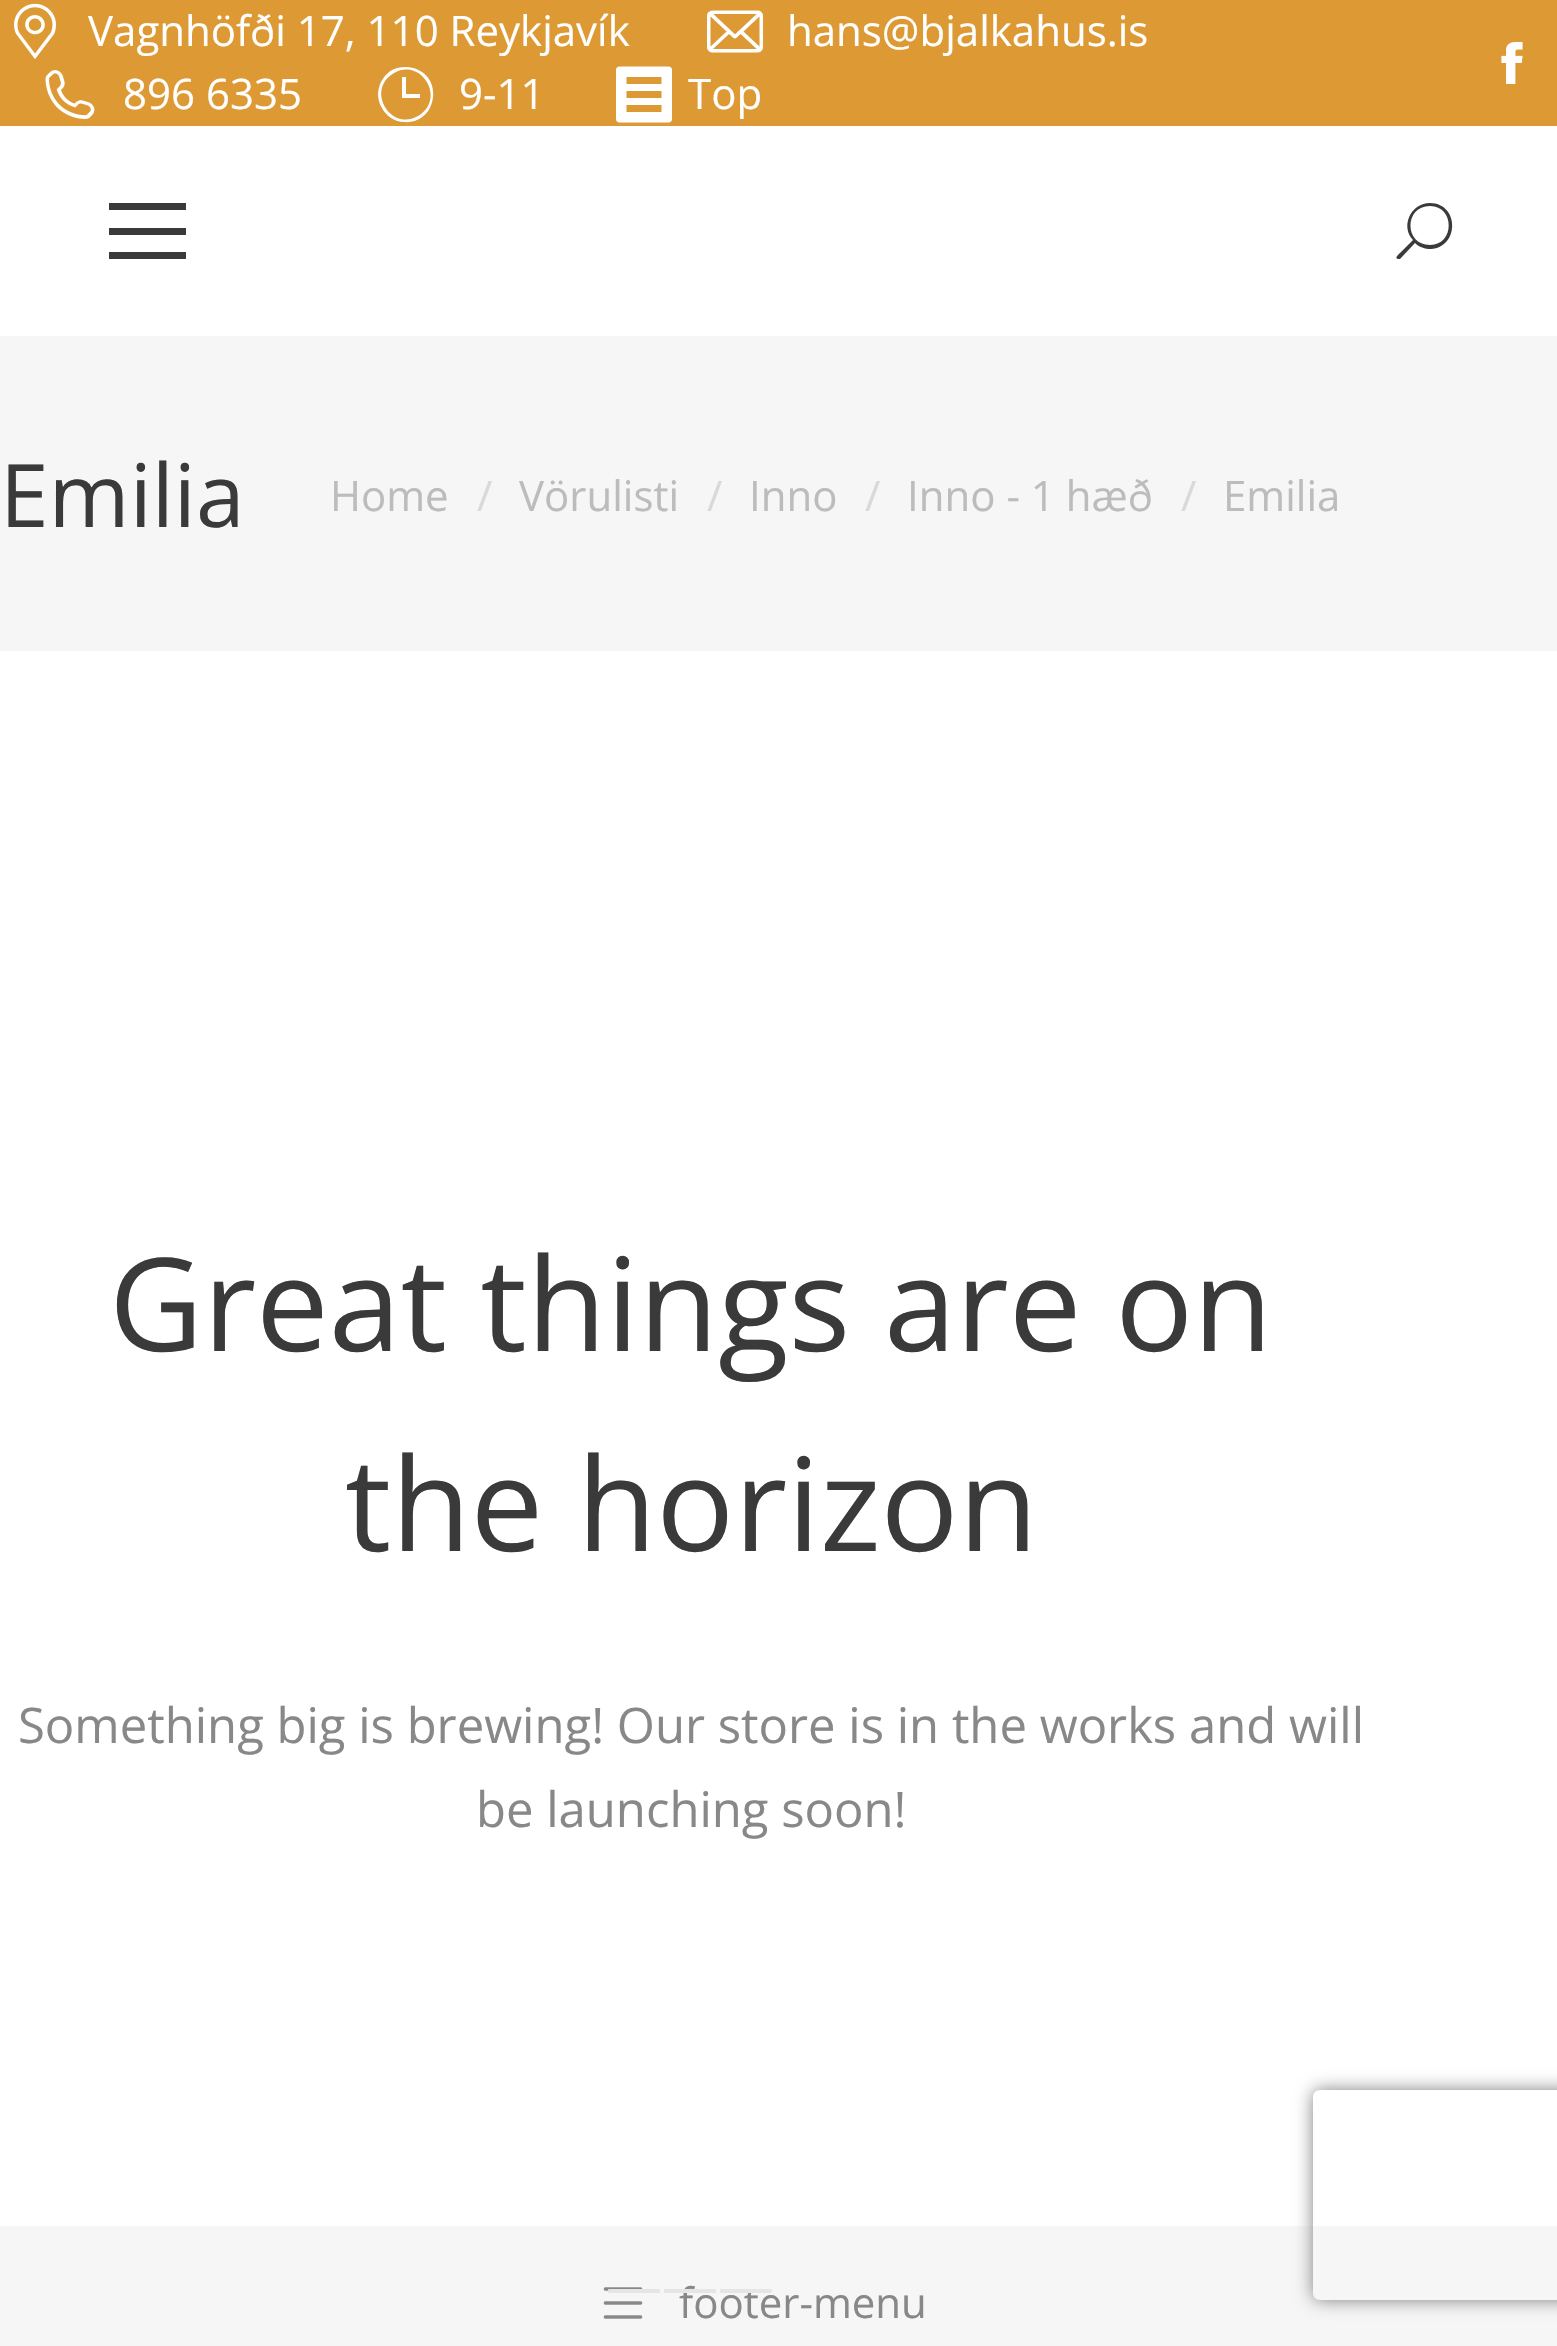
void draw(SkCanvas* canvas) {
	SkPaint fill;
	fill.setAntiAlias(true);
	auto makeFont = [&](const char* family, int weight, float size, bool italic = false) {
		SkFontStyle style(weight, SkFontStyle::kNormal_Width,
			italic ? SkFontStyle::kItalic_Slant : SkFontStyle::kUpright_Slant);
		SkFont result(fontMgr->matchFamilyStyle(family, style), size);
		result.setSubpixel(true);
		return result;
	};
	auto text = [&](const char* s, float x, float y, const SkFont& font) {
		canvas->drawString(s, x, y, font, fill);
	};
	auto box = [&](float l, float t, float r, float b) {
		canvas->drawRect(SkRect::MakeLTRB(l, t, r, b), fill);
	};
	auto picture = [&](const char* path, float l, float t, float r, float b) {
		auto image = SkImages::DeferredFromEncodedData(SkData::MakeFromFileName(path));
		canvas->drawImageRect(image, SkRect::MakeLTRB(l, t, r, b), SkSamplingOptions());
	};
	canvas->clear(0xFFFFFFFF);
	fill.setColor(0xFFDD9933);
	box(0, 0, 1557, 126);
	picture("image0.png", 14, 3, 56, 59);
	picture("image1.png", 707, 10, 763, 53);
	picture("image2.png", 45, 70, 95, 119);
	fill.setColor(0xFFFFFFFF);
	canvas->drawPath(SkPathBuilder().moveTo(392, 70).cubicTo(379, 78, 374, 95, 382, 108).cubicTo(386, 116, 395, 122, 404, 122).cubicTo(437, 125, 445, 76, 413, 68).cubicTo(406, 66, 398, 67, 392, 70).close().moveTo(418, 116).cubicTo(391, 132, 365, 90, 394, 73).cubicTo(421, 57, 447, 99, 418, 116).close().moveTo(406, 94).lineTo(406, 77).lineTo(402, 77).lineTo(402, 98).lineTo(420, 98).lineTo(420, 94).close().detach(), fill);
	picture("image3.png", 616, 66, 672, 123);
	picture("image4.png", 1501, 42, 1523, 84);
	fill.setColor(0xFF3A3A3A);
	box(109, 203, 186, 210);
	box(109, 228, 186, 235);
	box(109, 252, 186, 259);
	canvas->drawPath(SkPathBuilder().moveTo(1430, 203).cubicTo(1411, 203, 1400, 226, 1413, 240).lineTo(1402, 251).cubicTo(1398, 255, 1394, 258, 1398, 259).lineTo(1400, 259).lineTo(1415, 243).cubicTo(1419, 247, 1425, 249, 1431, 249).cubicTo(1460, 247, 1459, 203, 1430, 203).close().moveTo(1430, 245).cubicTo(1404, 245, 1404, 206, 1430, 206).cubicTo(1455, 206, 1455, 245, 1430, 245).close().detach(), fill);
	fill.setColor(0xFFF6F6F6);
	box(0, 336, 1557, 651);
	box(0, 2226, 1557, 2346);
	picture("image5.png", 603, 2287, 643, 2319);
	canvas->save();
	canvas->clipPath(SkPathBuilder(SkPathFillType::kEvenOdd).moveTo(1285, 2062).lineTo(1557, 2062).lineTo(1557, 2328).lineTo(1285, 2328).close().moveTo(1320, 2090).lineTo(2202, 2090).cubicTo(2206, 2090, 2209, 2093, 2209, 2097).lineTo(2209, 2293).cubicTo(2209, 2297, 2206, 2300, 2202, 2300).lineTo(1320, 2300).cubicTo(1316, 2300, 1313, 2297, 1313, 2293).lineTo(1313, 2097).cubicTo(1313, 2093, 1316, 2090, 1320, 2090).close().detach(), true);
	fill.setColor(0xFF808080);
	fill.setMaskFilter(SkMaskFilter::MakeBlur(kNormal_SkBlurStyle, 9));
	canvas->drawRoundRect(SkRect::MakeLTRB(1313, 2090, 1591, 2300), 7, 7, fill);
	fill.setMaskFilter(nullptr);
	canvas->restore();
	auto font1 = makeFont("Open Sans", 400, 42);
	fill.setColor(0xFFFFFFFF);
	text("Vagnhöfði 17, 110 Reykjavík", 88, 46, font1);
	text("hans@bjalkahus.is", 787, 46, font1);
	text("896 6335", 123, 109, font1);
	text("9-11", 459, 109, font1);
	text("Top", 688, 109, font1);
	auto font2 = makeFont("Open Sans", 400, 87.5f);
	fill.setColor(0xFF3A3A3A);
	text("Emilia", 0, 527, font2);
	fill.setColor(0xFFBCBCBC);
	text("Home", 330, 511, font1);
	fill.setColor(0xFFD9D9D9);
	text("/", 477, 511, font1);
	fill.setColor(0xFFBCBCBC);
	text("Vörulisti", 519, 511, font1);
	fill.setColor(0xFFD9D9D9);
	text("/", 707, 511, font1);
	fill.setColor(0xFFBCBCBC);
	text("Inno", 749, 511, font1);
	fill.setColor(0xFFD9D9D9);
	text("/", 865, 511, font1);
	fill.setColor(0xFFBCBCBC);
	text("Inno - 1 hæð", 907, 511, font1);
	fill.setColor(0xFFD9D9D9);
	text("/", 1181, 511, font1);
	fill.setColor(0xFFBCBCBC);
	text("Emilia", 1223, 511, font1);
	auto font3 = makeFont("Open Sans", 400, 129.5f);
	fill.setColor(0xFF3A3A3A);
	text("Great things are on", 109, 1351, font3);
	text("the horizon", 345, 1551, font3);
	auto font4 = makeFont("Open Sans", 400, 49);
	fill.setColor(0xFF888888);
	text("Something big is brewing! Our store is in the works and will", 18, 1743, font4);
	text("be launching soon!", 476, 1827, font4);
	text("footer-menu", 679, 2318, font1);
	auto font5 = makeFont("Open Sans", 400, 56);
	fill.setColor(0xFFE5E5E5);
	text("———", 606, 2306, font5);
}
